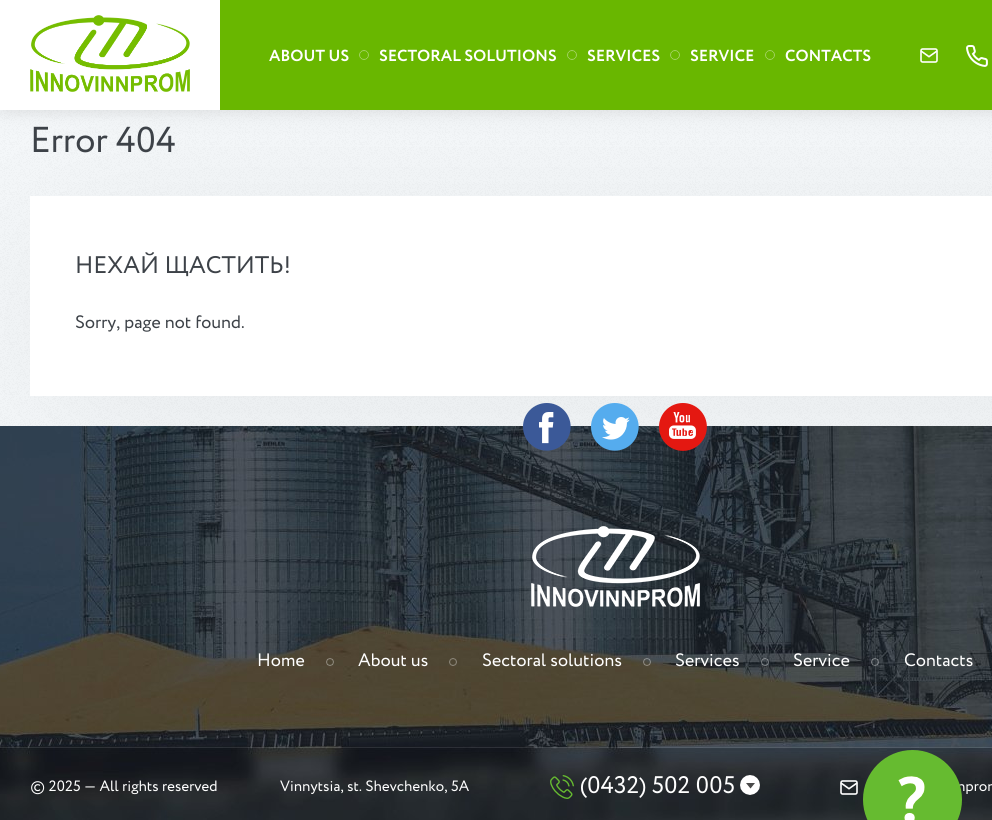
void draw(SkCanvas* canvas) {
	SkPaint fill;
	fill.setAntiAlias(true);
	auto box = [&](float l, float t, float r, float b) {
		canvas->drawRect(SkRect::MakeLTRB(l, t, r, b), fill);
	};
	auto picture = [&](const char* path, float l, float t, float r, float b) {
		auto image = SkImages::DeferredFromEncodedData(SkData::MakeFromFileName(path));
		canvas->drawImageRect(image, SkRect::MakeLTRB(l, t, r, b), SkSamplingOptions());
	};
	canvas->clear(0xFFFFFFFF);
	picture("image0.png", 0, 110, 992, 426);
	fill.setColor(0x0D000000);
	fill.setMaskFilter(SkMaskFilter::MakeBlur(kNormal_SkBlurStyle, 75));
	canvas->drawRect(SkRect::MakeLTRB(30, 221, 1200, 421), fill);
	fill.setMaskFilter(nullptr);
	fill.setColor(0xFFFFFFFF);
	box(30, 196, 992, 396);
	picture("image1.png", 77, 252, 289, 277);
	picture("image2.png", 76, 315, 244, 332);
	picture("image3.png", 33, 126, 175, 153);
	fill.setColor(0x1A000000);
	fill.setMaskFilter(SkMaskFilter::MakeBlur(kNormal_SkBlurStyle, 7));
	canvas->drawRect(SkRect::MakeLTRB(0, 2, 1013, 112), fill);
	fill.setMaskFilter(nullptr);
	fill.setColor(0xFF69B700);
	box(220, 0, 992, 110);
	fill.setColor(0xFFFFFFFF);
	box(0, 0, 220, 110);
	picture("image4.png", 30, 15, 190, 92);
	picture("image5.png", 269, 49, 349, 62);
	fill.setStyle(SkPaint::kStroke_Style);
	fill.setStrokeWidth(1);
	fill.setColor(0xFFA2D261);
	canvas->drawCircle(364, 55, 4.5f, fill);
	picture("image6.png", 379, 49, 556, 62);
	canvas->drawCircle(572, 55, 4.5f, fill);
	picture("image7.png", 587, 49, 660, 62);
	canvas->drawCircle(675, 55, 4.5f, fill);
	picture("image8.png", 690, 49, 754, 62);
	canvas->drawCircle(770, 55, 4.5f, fill);
	picture("image9.png", 785, 49, 871, 62);
	picture("image10.png", 920, 48, 938, 63);
	picture("image11.png", 966, 45, 988, 67);
	picture("image13.png", 0, 426, 992, 820);
	picture("image29.png", 959, 784, 992, 794);
	picture("image12.png", 863, 750, 962, 820);
	picture("image14.png", 523, 403, 571, 451);
	picture("image15.png", 591, 403, 639, 451);
	picture("image16.png", 659, 403, 707, 451);
	picture("image17.png", 531, 526, 700, 607);
	picture("image18.png", 258, 653, 305, 667);
	fill.setColor(0x61FFFFFF);
	canvas->drawCircle(330, 662, 3.5f, fill);
	picture("image19.png", 358, 653, 428, 667);
	fill.setColor(0xFF918C80);
	canvas->drawCircle(453, 662, 3.5f, fill);
	picture("image20.png", 483, 653, 622, 667);
	fill.setColor(0x61FFFFFF);
	canvas->drawCircle(647, 662, 3.5f, fill);
	picture("image21.png", 676, 653, 739, 667);
	canvas->drawCircle(765, 662, 3.5f, fill);
	picture("image22.png", 794, 653, 850, 667);
	canvas->drawCircle(875, 662, 3.5f, fill);
	picture("image23.png", 904, 653, 973, 667);
	picture("image24.png", 31, 780, 217, 795);
	picture("image25.png", 280, 780, 469, 794);
	picture("image26.png", 550, 775, 574, 799);
	picture("image27.png", 581, 776, 734, 798);
	fill.setStyle(SkPaint::kFill_Style);
	fill.setColor(0xFFFFFFFF);
	canvas->drawCircle(750, 785, 10, fill);
	fill.setColor(0xFF4A4A4A);
	canvas->drawPath(SkPathBuilder().moveTo(750.5f, 788.5f).lineTo(746, 783).lineTo(755, 783).close().detach(), fill);
	picture("image28.png", 840, 780, 858, 795);
}
